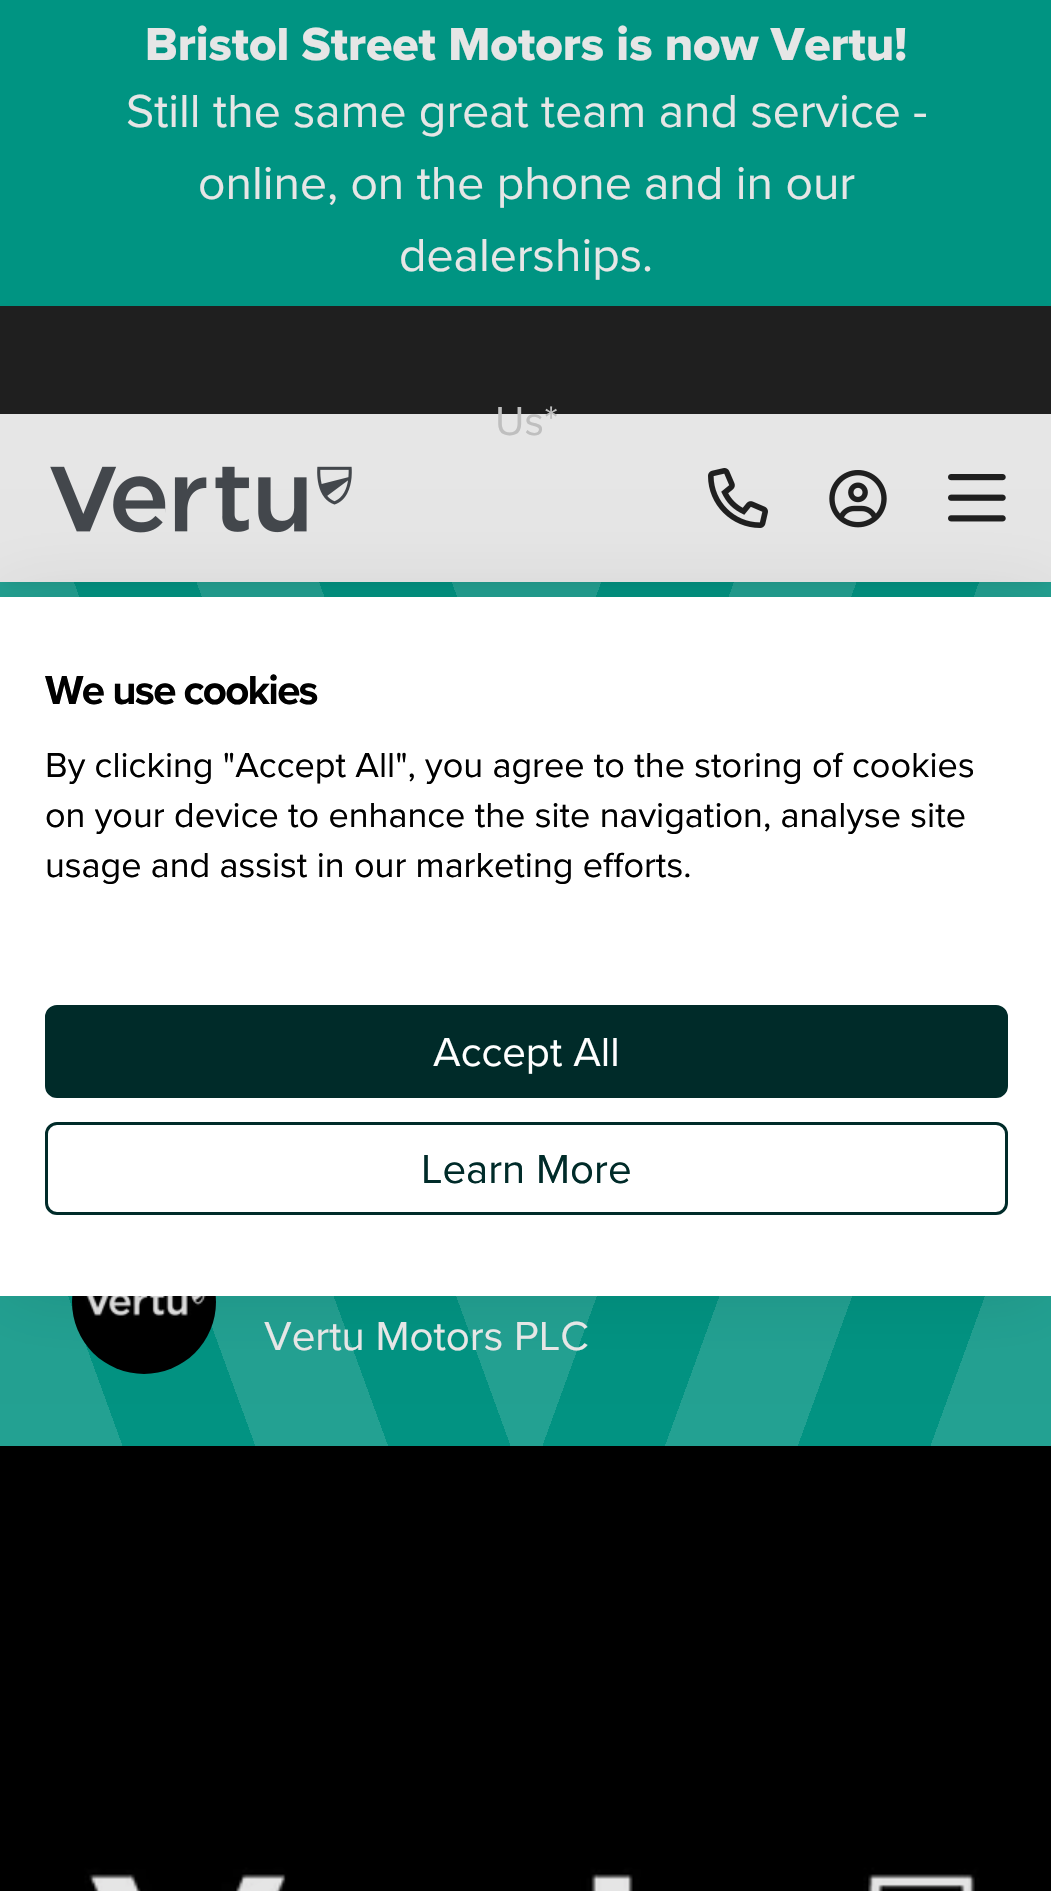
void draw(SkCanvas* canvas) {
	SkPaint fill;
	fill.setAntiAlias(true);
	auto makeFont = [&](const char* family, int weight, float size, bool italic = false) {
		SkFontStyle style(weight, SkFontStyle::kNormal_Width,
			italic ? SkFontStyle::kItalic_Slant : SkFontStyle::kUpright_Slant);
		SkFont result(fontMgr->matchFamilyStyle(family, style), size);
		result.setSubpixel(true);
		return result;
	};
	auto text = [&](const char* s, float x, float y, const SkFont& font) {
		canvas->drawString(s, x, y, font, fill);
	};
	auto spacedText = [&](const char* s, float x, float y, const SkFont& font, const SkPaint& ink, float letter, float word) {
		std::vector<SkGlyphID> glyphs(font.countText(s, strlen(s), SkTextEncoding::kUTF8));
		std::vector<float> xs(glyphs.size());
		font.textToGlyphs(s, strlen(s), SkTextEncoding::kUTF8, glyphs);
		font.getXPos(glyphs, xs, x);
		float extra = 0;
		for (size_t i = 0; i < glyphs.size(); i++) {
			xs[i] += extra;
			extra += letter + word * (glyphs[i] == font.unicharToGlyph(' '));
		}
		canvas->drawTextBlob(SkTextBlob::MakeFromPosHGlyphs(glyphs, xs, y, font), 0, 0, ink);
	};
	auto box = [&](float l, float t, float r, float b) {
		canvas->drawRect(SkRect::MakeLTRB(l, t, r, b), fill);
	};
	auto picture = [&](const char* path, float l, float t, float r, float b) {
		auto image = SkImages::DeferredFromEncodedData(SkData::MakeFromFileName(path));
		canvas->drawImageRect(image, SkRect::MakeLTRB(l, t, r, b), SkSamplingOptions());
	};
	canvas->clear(0xFF009482);
	{
		const SkColor colors[] = {0xFF23A192, 0xFF23A192, 0xFF029382, 0xFF029382, 0xFF23A192, 0xFF23A192, 0xFF029382, 0xFF029382, 0xFF23A192, 0xFF23A192, 0xFF029382, 0xFF029382, 0xFF23A192, 0xFF23A192, 0xFF029382, 0xFF029382};
		const float stops[] = {0, 0.12f, 0.12f, 0.25f, 0.25f, 0.38f, 0.38f, 0.5f, 0.5f, 0.62f, 0.62f, 0.75f, 0.75f, 0.88f, 0.88f, 1};
		const SkPoint ends[] = {{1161, 1149}, {259, 821}};
		fill.setShader(SkGradientShader::MakeLinear(ends, colors, stops, 16, SkTileMode::kClamp));
		fill.setAlpha(255);
	}
	box(528, 582, 1051, 1446);
	{
		const SkColor colors[] = {0xFF23A192, 0xFF23A192, 0xFF029382, 0xFF029382, 0xFF23A192, 0xFF23A192, 0xFF029382, 0xFF029382, 0xFF23A192, 0xFF23A192, 0xFF029382, 0xFF029382, 0xFF23A192, 0xFF23A192, 0xFF029382, 0xFF029382};
		const float stops[] = {0, 0.12f, 0.12f, 0.25f, 0.25f, 0.38f, 0.38f, 0.5f, 0.5f, 0.62f, 0.62f, 0.75f, 0.75f, 0.88f, 0.88f, 1};
		const SkPoint ends[] = {{-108, 1149}, {794, 821}};
		fill.setShader(SkGradientShader::MakeLinear(ends, colors, stops, 16, SkTileMode::kClamp));
		fill.setAlpha(255);
	}
	box(0, 582, 528, 1446);
	fill.setShader(nullptr);
	fill.setColor(0x1A010101);
	fill.setMaskFilter(SkMaskFilter::MakeBlur(kNormal_SkBlurStyle, 6));
	canvas->drawRect(SkRect::MakeLTRB(6, 318, 1047, 582), fill);
	fill.setMaskFilter(nullptr);
	fill.setColor(0xFFE6E6E6);
	box(0, 414, 1051, 582);
	fill.setColor(0xFF1F1F1F);
	box(0, 306, 1051, 414);
	picture("image0.png", 50, 466, 352, 533);
	picture("image1.png", 708, 468, 768, 528);
	picture("image2.png", 829, 470, 887, 528);
	picture("image3.png", 948, 474, 1006, 522);
	picture("image4.png", 72, 1296, 216, 1374);
	fill.setColor(0x1A000000);
	fill.setMaskFilter(SkMaskFilter::MakeBlur(kNormal_SkBlurStyle, 36));
	canvas->drawRect(SkRect::MakeLTRB(0, 597, 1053, 1296), fill);
	fill.setMaskFilter(nullptr);
	fill.setColor(0xFFFFFFFF);
	box(0, 597, 1051, 1296);
	fill.setColor(0xFF002B29);
	canvas->drawRoundRect(SkRect::MakeLTRB(46.5f, 1006.5f, 1006.5f, 1096.5f), 10.5f, 10.5f, fill);
	fill.setStyle(SkPaint::kStroke_Style);
	fill.setStrokeWidth(3);
	canvas->drawRoundRect(SkRect::MakeLTRB(46.5f, 1006.5f, 1006.5f, 1096.5f), 10.5f, 10.5f, fill);
	canvas->drawRoundRect(SkRect::MakeLTRB(46.5f, 1123.5f, 1006.5f, 1213.5f), 10.5f, 10.5f, fill);
	picture("image5.png", 0, 1446, 1051, 1891);
	auto font1 = makeFont("Proxima Nova", 800, 48);
	fill.setStyle(SkPaint::kFill_Style);
	fill.setColor(0xFFE6E6E6);
	text("Bristol Street Motors is now Vertu!", 145, 60, font1);
	auto font2 = makeFont("Proxima Nova", 400, 48);
	text("Still the same great team and service -", 126, 127, font2);
	text("online, on the phone and in our", 198, 199, font2);
	text("dealerships.", 399, 271, font2);
	auto font3 = makeFont("Proxima Nova", 400, 42);
	fill.setColor(0xFFBFBFBF);
	text("Us*", 495, 435, font3);
	auto font4 = makeFont("Proxima Nova", 700, 42);
	fill.setColor(0xFF000000);
	spacedText("We use cookies", 45, 704, font4, fill, -1.75f, 0);
	auto font5 = makeFont("Proxima Nova", 400, 36);
	text("By clicking \"Accept All\", you agree to the storing of cookies", 45, 777, font5);
	text("on your device to enhance the site navigation, analyse site", 45, 827, font5);
	text("usage and assist in our marketing efforts.", 45, 877, font5);
	fill.setColor(0xFFFFFFFF);
	text("Accept All", 433, 1066, font3);
	fill.setColor(0xFF002B29);
	text("Learn More", 421, 1183, font3);
	fill.setColor(0xFFE6E6E6);
	text("Vertu Motors PLC", 264, 1350, font3);
}
